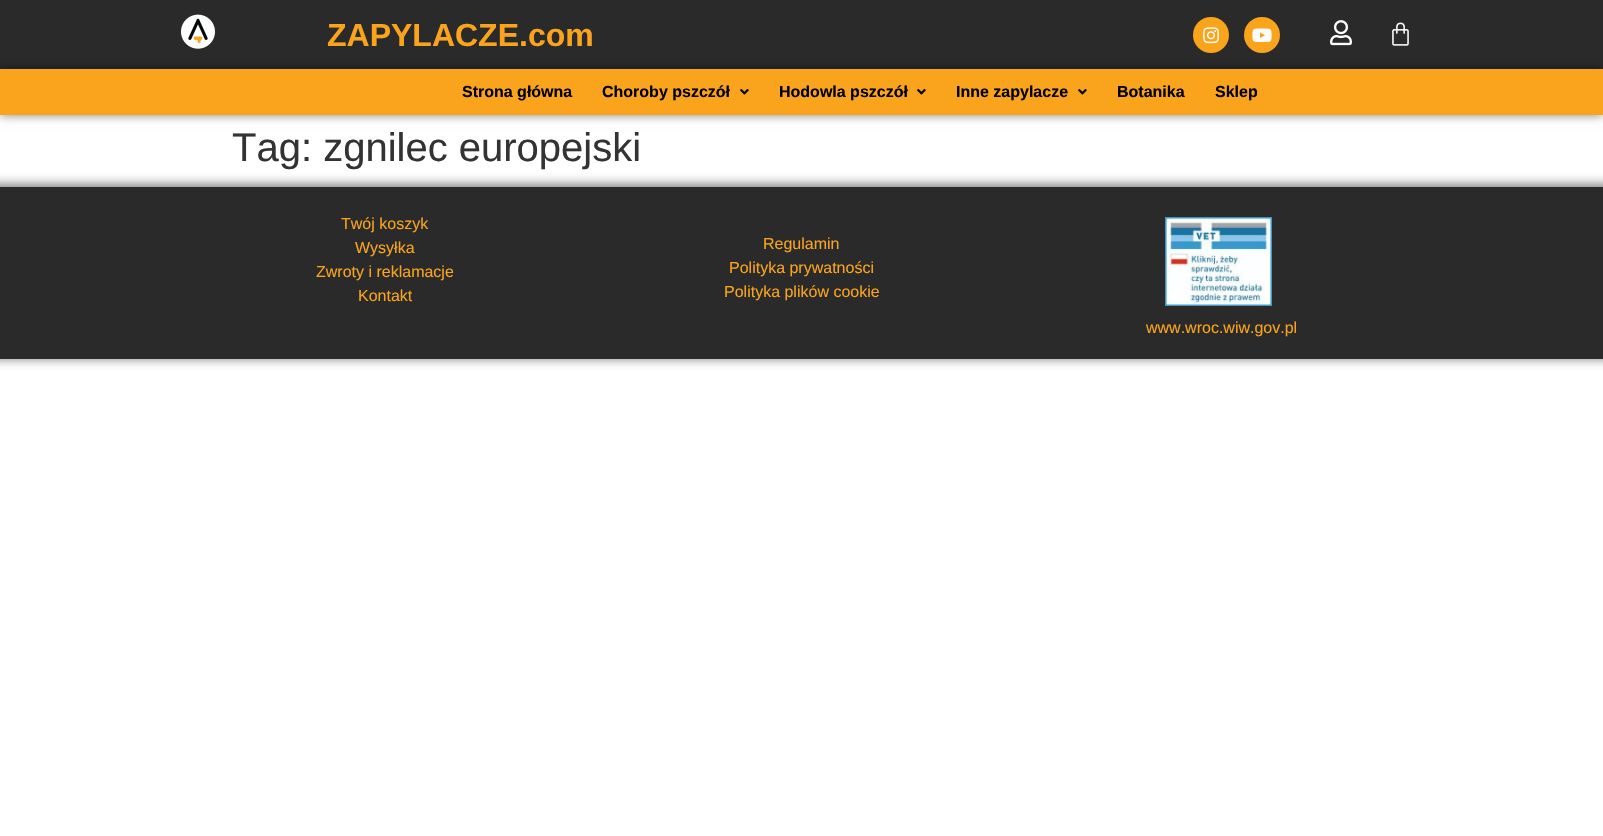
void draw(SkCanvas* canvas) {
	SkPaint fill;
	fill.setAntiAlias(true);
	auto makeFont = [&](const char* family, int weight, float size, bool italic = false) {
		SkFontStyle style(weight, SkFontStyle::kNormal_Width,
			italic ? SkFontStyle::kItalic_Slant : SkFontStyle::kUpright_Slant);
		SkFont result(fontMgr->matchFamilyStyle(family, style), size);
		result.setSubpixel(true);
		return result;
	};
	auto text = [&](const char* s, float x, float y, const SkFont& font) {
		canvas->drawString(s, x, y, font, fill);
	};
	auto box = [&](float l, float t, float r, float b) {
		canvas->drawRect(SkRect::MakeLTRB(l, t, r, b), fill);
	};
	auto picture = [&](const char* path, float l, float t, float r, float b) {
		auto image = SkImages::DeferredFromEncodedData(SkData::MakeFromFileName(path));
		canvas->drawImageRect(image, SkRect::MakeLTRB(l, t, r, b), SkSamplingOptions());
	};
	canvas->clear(0xFFFFFFFF);
	fill.setColor(0xFF2B2A2A);
	box(0, 0, 1603, 69);
	picture("image0.png", 181, 14, 215, 49);
	fill.setColor(0xFFFAA41C);
	canvas->drawCircle(1211, 35, 18, fill);
	picture("image1.png", 1203, 27, 1219, 44);
	canvas->drawCircle(1262, 35, 18, fill);
	picture("image2.png", 1252, 28, 1272, 42);
	picture("image3.png", 1330, 20, 1352, 46);
	picture("image4.png", 1392, 22, 1409, 46);
	fill.setColor(0x80000000);
	fill.setMaskFilter(SkMaskFilter::MakeBlur(kNormal_SkBlurStyle, 5));
	canvas->drawRect(SkRect::MakeLTRB(0, 69, 1603, 115), fill);
	fill.setMaskFilter(nullptr);
	fill.setColor(0xFFFAA41D);
	box(0, 69, 1603, 115);
	picture("image5.png", 740, 89, 749, 95);
	picture("image5.png", 917, 89, 926, 95);
	picture("image5.png", 1078, 89, 1087, 95);
	fill.setColor(0x80000000);
	fill.setMaskFilter(SkMaskFilter::MakeBlur(kNormal_SkBlurStyle, 5));
	canvas->drawRect(SkRect::MakeLTRB(-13, 184, 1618, 359), fill);
	fill.setMaskFilter(nullptr);
	fill.setColor(0xFF2B2A2A);
	box(0, 187, 1603, 359);
	picture("image6.png", 1165, 217, 1272, 306);
	auto font1 = makeFont("Liberation Sans", 700, 32);
	fill.setColor(0xFFFAA41D);
	text("ZAPYLACZE.com", 327, 46, font1);
	auto font2 = makeFont("Liberation Sans", 700, 16);
	fill.setColor(0xFF000000);
	text("Strona główna", 462, 97, font2);
	text("Choroby pszczół", 602, 97, font2);
	text("Hodowla pszczół", 779, 97, font2);
	text("Inne zapylacze", 956, 97, font2);
	text("Botanika", 1117, 97, font2);
	text("Sklep", 1215, 97, font2);
	auto font3 = makeFont("Liberation Sans", 400, 40);
	fill.setColor(0xFF333333);
	text("Tag: zgnilec europejski", 232, 161, font3);
	auto font4 = makeFont("Liberation Sans", 400, 16);
	fill.setColor(0xFFFAA41D);
	text("Twój koszyk", 341, 229, font4);
	text("Wysyłka", 355, 253, font4);
	text("Zwroty i reklamacje", 316, 277, font4);
	text("Kontakt", 358, 301, font4);
	text("Regulamin", 763, 249, font4);
	text("Polityka prywatności", 729, 273, font4);
	text("Polityka plików cookie", 724, 297, font4);
	text("www.wroc.wiw.gov.pl", 1146, 333, font4);
}
